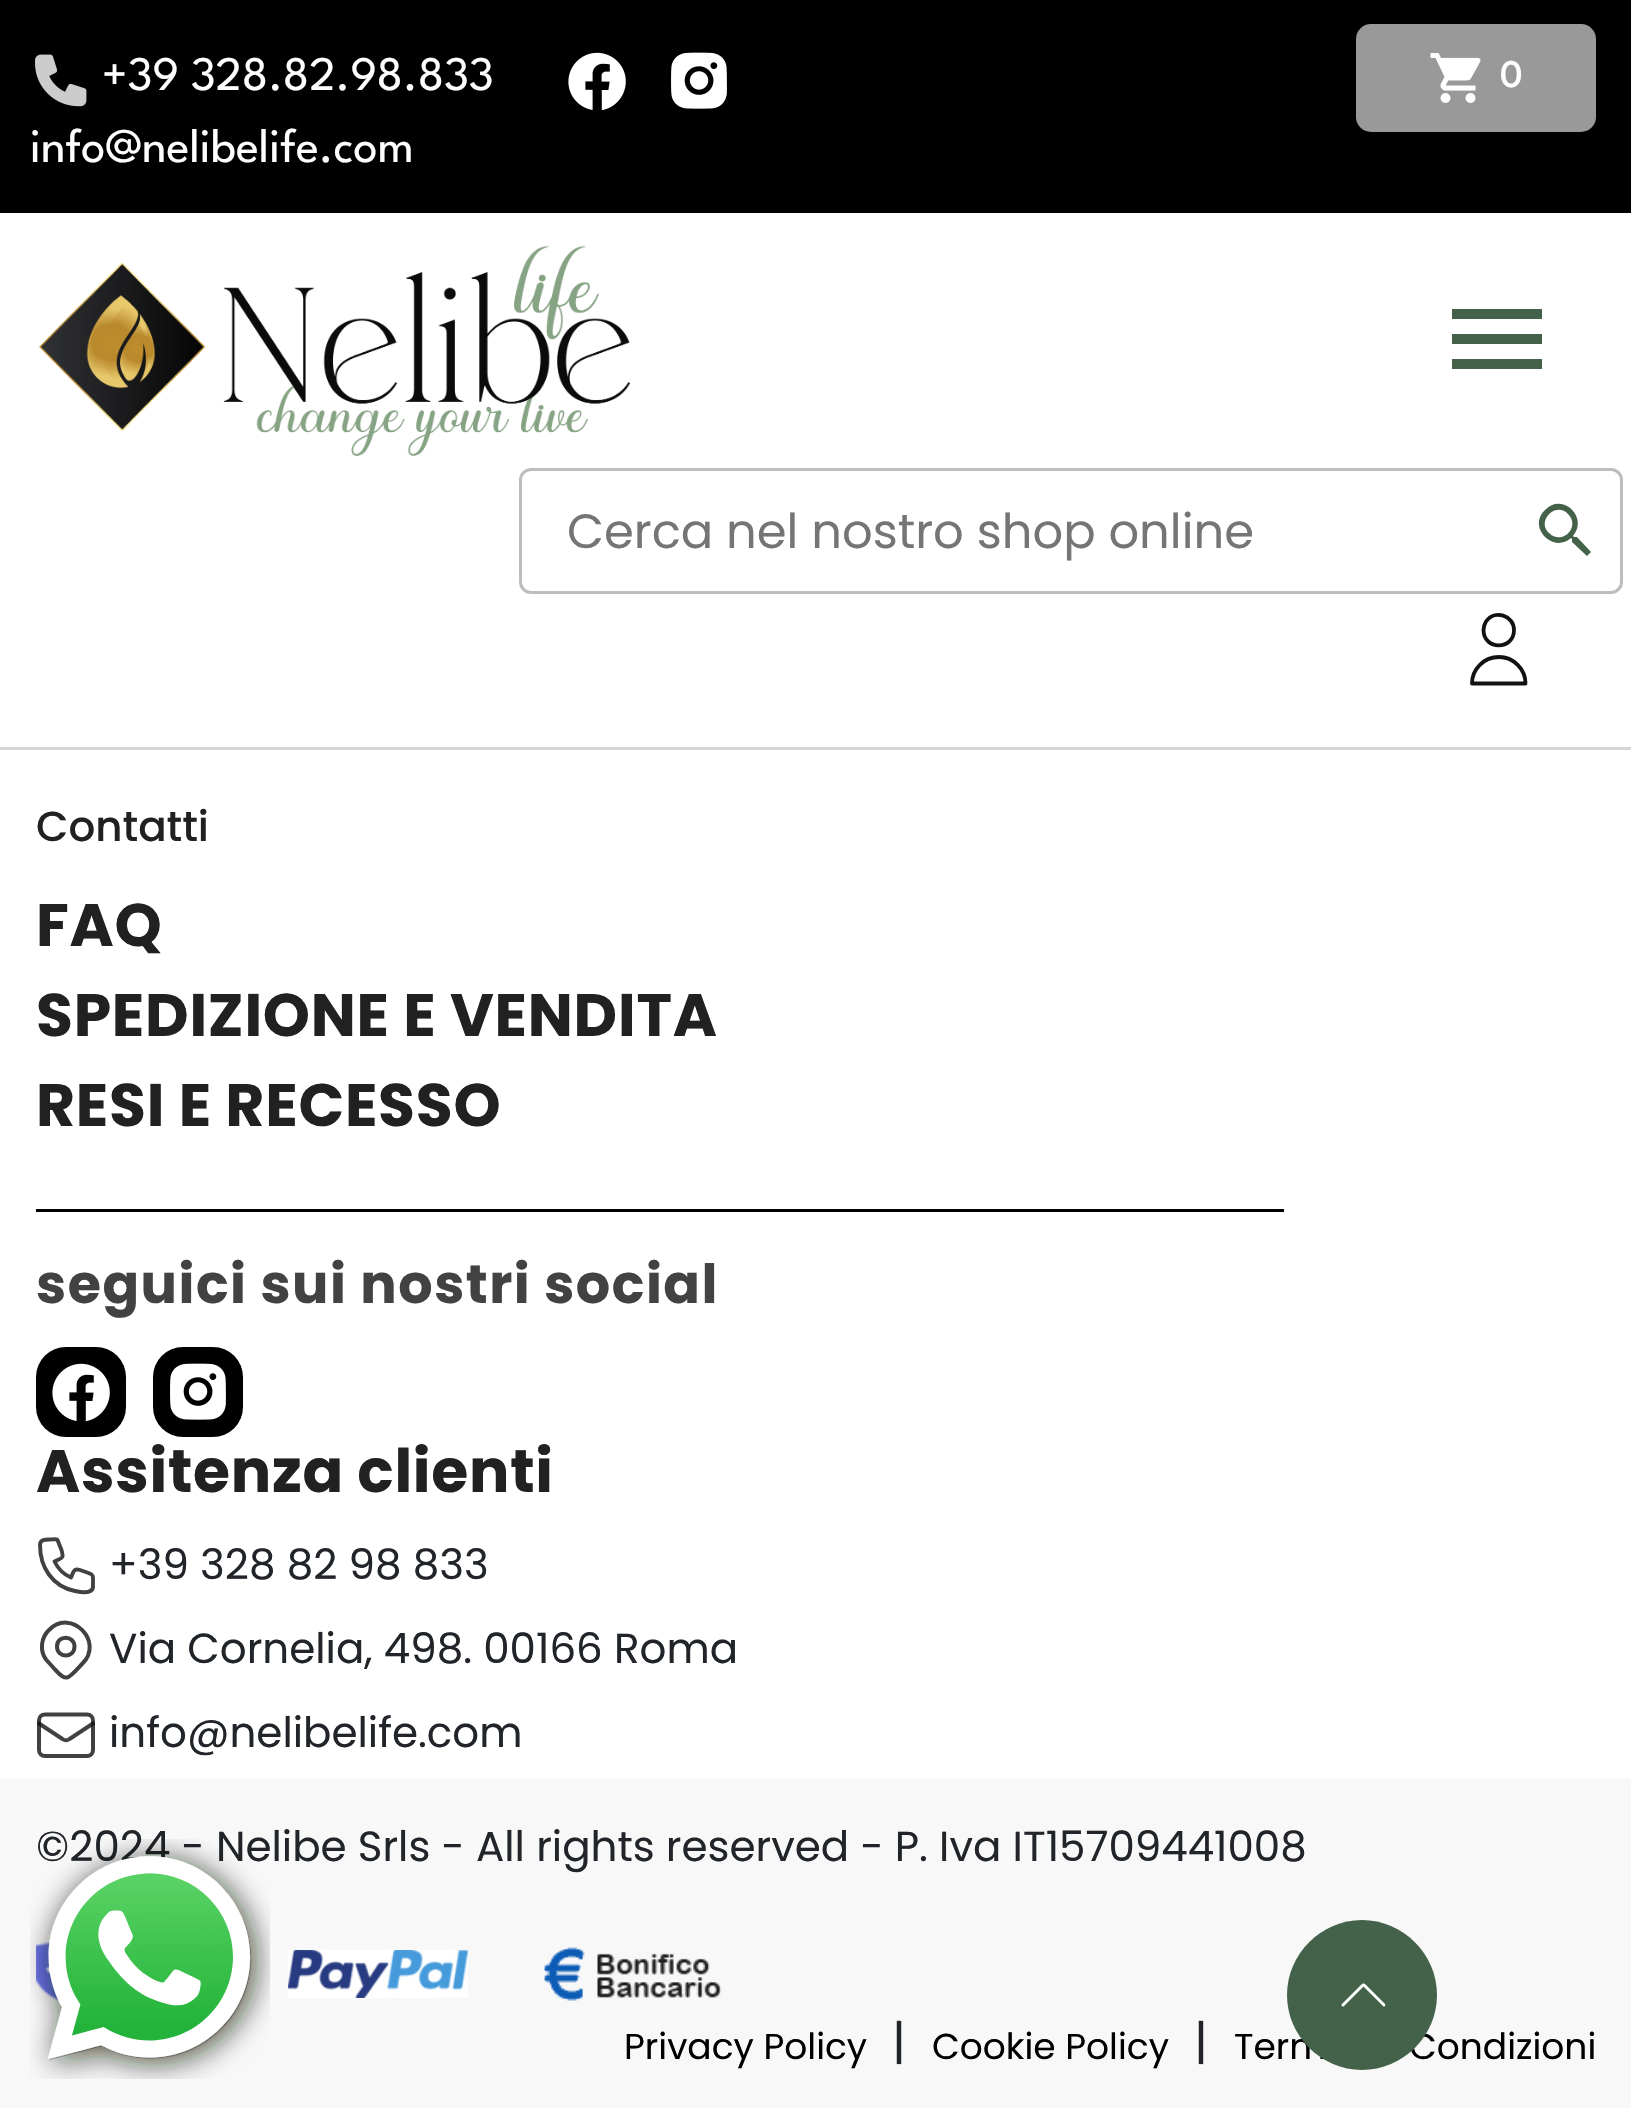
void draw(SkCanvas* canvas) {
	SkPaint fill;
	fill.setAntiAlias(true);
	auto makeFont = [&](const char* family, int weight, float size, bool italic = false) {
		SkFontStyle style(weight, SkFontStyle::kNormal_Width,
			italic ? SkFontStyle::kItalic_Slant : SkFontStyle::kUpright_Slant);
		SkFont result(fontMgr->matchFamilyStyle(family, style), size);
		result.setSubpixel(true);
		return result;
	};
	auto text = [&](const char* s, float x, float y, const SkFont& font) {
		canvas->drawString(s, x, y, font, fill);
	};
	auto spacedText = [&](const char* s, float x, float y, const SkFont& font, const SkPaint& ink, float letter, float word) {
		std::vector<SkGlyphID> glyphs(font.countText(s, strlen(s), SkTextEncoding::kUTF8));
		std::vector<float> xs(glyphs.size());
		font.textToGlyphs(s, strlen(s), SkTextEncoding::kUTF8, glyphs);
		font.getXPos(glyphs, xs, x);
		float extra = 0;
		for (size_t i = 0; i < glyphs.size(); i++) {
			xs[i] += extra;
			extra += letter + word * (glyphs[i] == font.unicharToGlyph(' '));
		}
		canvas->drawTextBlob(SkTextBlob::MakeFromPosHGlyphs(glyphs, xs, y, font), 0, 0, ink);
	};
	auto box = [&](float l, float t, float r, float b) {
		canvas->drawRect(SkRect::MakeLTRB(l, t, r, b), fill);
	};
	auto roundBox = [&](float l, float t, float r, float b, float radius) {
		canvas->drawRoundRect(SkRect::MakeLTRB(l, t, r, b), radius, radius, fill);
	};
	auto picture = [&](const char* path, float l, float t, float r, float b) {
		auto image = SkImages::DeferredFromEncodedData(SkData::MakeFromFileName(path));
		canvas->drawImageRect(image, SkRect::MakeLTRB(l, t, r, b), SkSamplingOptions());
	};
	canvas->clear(0xFFFFFFFF);
	fill.setColor(0xFFD5D5D5);
	box(0, 747, 1631, 750);
	fill.setColor(0xFF000000);
	box(0, 0, 1631, 213);
	picture("image0.png", 35, 54, 87, 107);
	picture("image1.png", 568, 52, 626, 111);
	picture("image2.png", 671, 52, 727, 109);
	fill.setColor(0xFF999999);
	roundBox(1356, 24, 1596, 132, 15);
	picture("image3.png", 1430, 53, 1481, 103);
	picture("image4.png", 39, 245, 630, 456);
	fill.setColor(0xFF44624A);
	canvas->drawPath(SkPathBuilder().moveTo(1452, 309).lineTo(1542, 309).lineTo(1542, 319).lineTo(1452, 319).close().moveTo(1452, 344).lineTo(1452, 334).lineTo(1542, 334).lineTo(1542, 344).close().moveTo(1452, 369).lineTo(1452, 359).lineTo(1542, 359).lineTo(1542, 369).close().detach(), fill);
	fill.setStyle(SkPaint::kStroke_Style);
	fill.setStrokeWidth(3);
	fill.setColor(0xFFBDBDBD);
	canvas->drawRoundRect(SkRect::MakeLTRB(520.5f, 469.5f, 1621.5f, 592.5f), 10.5f, 10.5f, fill);
	fill.setStyle(SkPaint::kFill_Style);
	fill.setColor(0xFF44624A);
	canvas->drawPath(SkPathBuilder().moveTo(1549, 533).cubicTo(1562, 546, 1581, 527, 1568, 514).cubicTo(1556, 501, 1536, 521, 1549, 533).close().moveTo(1577, 537).lineTo(1591, 552).lineTo(1587, 556).lineTo(1572, 542).lineTo(1572, 539).lineTo(1571, 538).cubicTo(1553, 554, 1527, 527, 1545, 510).cubicTo(1562, 492, 1589, 517, 1573, 536).lineTo(1574, 537).close().detach(), fill);
	fill.setStyle(SkPaint::kStroke_Style);
	fill.setStrokeWidth(3.8f);
	fill.setStrokeCap(SkPaint::kRound_Cap);
	fill.setStrokeJoin(SkPaint::kRound_Join);
	fill.setColor(0xFF121212);
	canvas->drawPath(SkPathBuilder().moveTo(1514, 630).cubicTo(1514, 650.5f, 1483.5f, 650.5f, 1483.5f, 630).cubicTo(1483.5f, 627, 1484.5f, 624, 1486, 621.5f).cubicTo(1494.5f, 609, 1514, 615.5f, 1514, 630).close().detach(), fill);
	canvas->drawPath(SkPathBuilder().moveTo(1499, 657).cubicTo(1484, 657, 1472, 669, 1472, 683.5f).lineTo(1525.5f, 683.5f).cubicTo(1525.5f, 669, 1513.5f, 657, 1499, 657).close().detach(), fill);
	fill.setStyle(SkPaint::kFill_Style);
	{
		const SkColor colors[] = {0xFFFFFFFF, 0xFFE0E0E0};
		const float stops[] = {0.01f, 0.01f};
		fill.setShader(SkGradientShader::MakeRadial({816, 825}, 117000, colors, stops, 2, SkTileMode::kClamp));
		fill.setAlpha(255);
	}
	box(36, 774, 1596, 876);
	fill.setShader(nullptr);
	fill.setColor(0xFF000000);
	box(36, 1209, 1284, 1212);
	roundBox(36, 1347, 126, 1437, 30);
	picture("image1.png", 52, 1363, 110, 1422);
	roundBox(153, 1347, 243, 1437, 30);
	picture("image2.png", 170, 1363, 226, 1420);
	fill.setStyle(SkPaint::kStroke_Style);
	fill.setStrokeWidth(3.9f);
	fill.setColor(0xFF414141);
	canvas->drawPath(SkPathBuilder().moveTo(40, 1545).cubicTo(40, 1539, 46.5f, 1539.5f, 50.5f, 1539.5f).cubicTo(52.5f, 1539.5f, 56, 1538.5f, 57.5f, 1540).lineTo(61.5f, 1550).cubicTo(64, 1559, 62.5f, 1557.5f, 54.5f, 1561.5f).cubicTo(58, 1568.5f, 63.5f, 1574.5f, 71, 1577.5f).cubicTo(73.5f, 1572, 73.5f, 1568, 80, 1570).lineTo(88.5f, 1573).cubicTo(92, 1574, 93, 1575, 93, 1578).lineTo(93, 1587.5f).cubicTo(91.5f, 1594.5f, 79.5f, 1592, 75, 1591).cubicTo(52.5f, 1586.5f, 40, 1567.5f, 40, 1545).close().detach(), fill);
	fill.setStrokeWidth(4);
	canvas->drawPath(SkPathBuilder().moveTo(82.5f, 1663.5f).cubicTo(79.5f, 1666.5f, 71, 1677, 67, 1677.5f).cubicTo(62, 1678.5f, 58, 1672.5f, 55, 1669.5f).lineTo(46, 1659.5f).cubicTo(39.5f, 1650.5f, 41, 1637.5f, 49, 1630).cubicTo(71, 1607.5f, 104.5f, 1641.5f, 82.5f, 1663.5f).close().moveTo(74.5f, 1646.5f).cubicTo(74.5f, 1658.5f, 57, 1658.5f, 57, 1646.5f).cubicTo(57, 1634.5f, 74.5f, 1635, 74.5f, 1646.5f).close().detach(), fill);
	canvas->drawPath(SkPathBuilder().moveTo(45, 1756).lineTo(87, 1756).cubicTo(90.5f, 1756, 93, 1753.5f, 93, 1750).lineTo(93, 1720.5f).cubicTo(93, 1717, 90.5f, 1714.5f, 87, 1714.5f).lineTo(45, 1714.5f).cubicTo(41.5f, 1714.5f, 39, 1717, 39, 1720.5f).lineTo(39, 1750).cubicTo(39, 1753.5f, 41.5f, 1756, 45, 1756).close().detach(), fill);
	fill.setColor(0xCC121212);
	canvas->drawPath(SkPathBuilder().moveTo(39, 1723.5f).lineTo(62.5f, 1739).cubicTo(64.5f, 1740.5f, 67.5f, 1740.5f, 69.5f, 1739).lineTo(93, 1723.5f).detach(), fill);
	fill.setStyle(SkPaint::kFill_Style);
	fill.setColor(0xFFF8F8F8);
	box(0, 1779, 1631, 2108);
	picture("image5.png", 36, 1941, 60, 2003);
	picture("image6.png", 288, 1950, 468, 1998);
	picture("image7.png", 544, 1947, 722, 2001);
	auto font1 = makeFont("League Spartan", 400, 48);
	fill.setColor(0xFFFFFFFF);
	text("+39 328.82.98.833", 102, 90, font1);
	text("info@nelibelife.com", 30, 162, font1);
	auto font2 = makeFont("League Spartan", 500, 39);
	spacedText("0", 1500, 87, font2, fill, 1.5f, 0);
	auto font3 = makeFont("Poppins", 400, 48);
	fill.setColor(0xFF757575);
	text("Cerca nel nostro shop online", 567, 548, font3);
	auto font4 = makeFont("Poppins", 500, 42);
	fill.setColor(0xFF212121);
	text("Contatti", 36, 841, font4);
	auto font5 = makeFont("Poppins", 700, 60);
	spacedText("FAQ", 36, 946, font5, fill, 0.75f, 0);
	spacedText("SPEDIZIONE E VENDITA", 36, 1036, font5, fill, 0.75f, 0);
	spacedText("RESI E RECESSO", 36, 1126, font5, fill, 0.75f, 0);
	auto font6 = makeFont("Poppins", 700, 54);
	fill.setColor(0xFF424242);
	spacedText("seguici sui nostri social", 36, 1303, font6, fill, 1.5f, 0);
	fill.setColor(0xFF212121);
	spacedText("Assitenza clienti", 36, 1492, font5, fill, 0.75f, 0);
	auto font7 = makeFont("Poppins", 400, 42);
	fill.setColor(0xFF212529);
	text("+39 328 82 98 833", 109, 1579, font7);
	text("Via Cornelia, 498. 00166 Roma", 109, 1663, font7);
	text("info@nelibelife.com", 109, 1747, font7);
	text("©2024 - Nelibe Srls - All rights reserved - P. Iva IT15709441008", 36, 1861, font7);
	auto font8 = makeFont("Poppins", 400, 36);
	fill.setColor(0xFF000000);
	text("Privacy Policy", 624, 2059, font8);
	fill.setColor(0xFF212529);
	text("|", 892, 2059, font3);
	fill.setColor(0xFF000000);
	text("Cookie Policy", 932, 2059, font8);
	fill.setColor(0xFF212529);
	text("|", 1194, 2059, font3);
	fill.setColor(0xFF000000);
	text("Term", 1234, 2059, font8);
	text("Condizioni", 1409, 2059, font8);
	fill.setColor(0xFF44624A);
	canvas->drawPath(SkPathBuilder().moveTo(1287, 1995).cubicTo(1287, 1954, 1321, 1920, 1362, 1920).cubicTo(1403, 1920, 1437, 1954, 1437, 1995).cubicTo(1437, 2036, 1403, 2070, 1362, 2070).cubicTo(1321, 2070, 1287, 2036, 1287, 1995).close().detach(), fill);
	canvas->save();
	canvas->clipPath(SkPathBuilder().moveTo(1340.5f, 2007.5f).lineTo(1340.5f, 1983.5f).lineTo(1385.5f, 1983.5f).lineTo(1385.5f, 2007.5f).close().detach(), true);
	fill.setStyle(SkPaint::kStroke_Style);
	fill.setStrokeWidth(2.9f);
	fill.setColor(0xFFFFFFFF);
	canvas->drawPath(SkPathBuilder().moveTo(1343, 2005).lineTo(1363.5f, 1984.5f).lineTo(1384, 2005).detach(), fill);
	canvas->restore();
	picture("image8.png", 30, 1839, 270, 2079);
}
